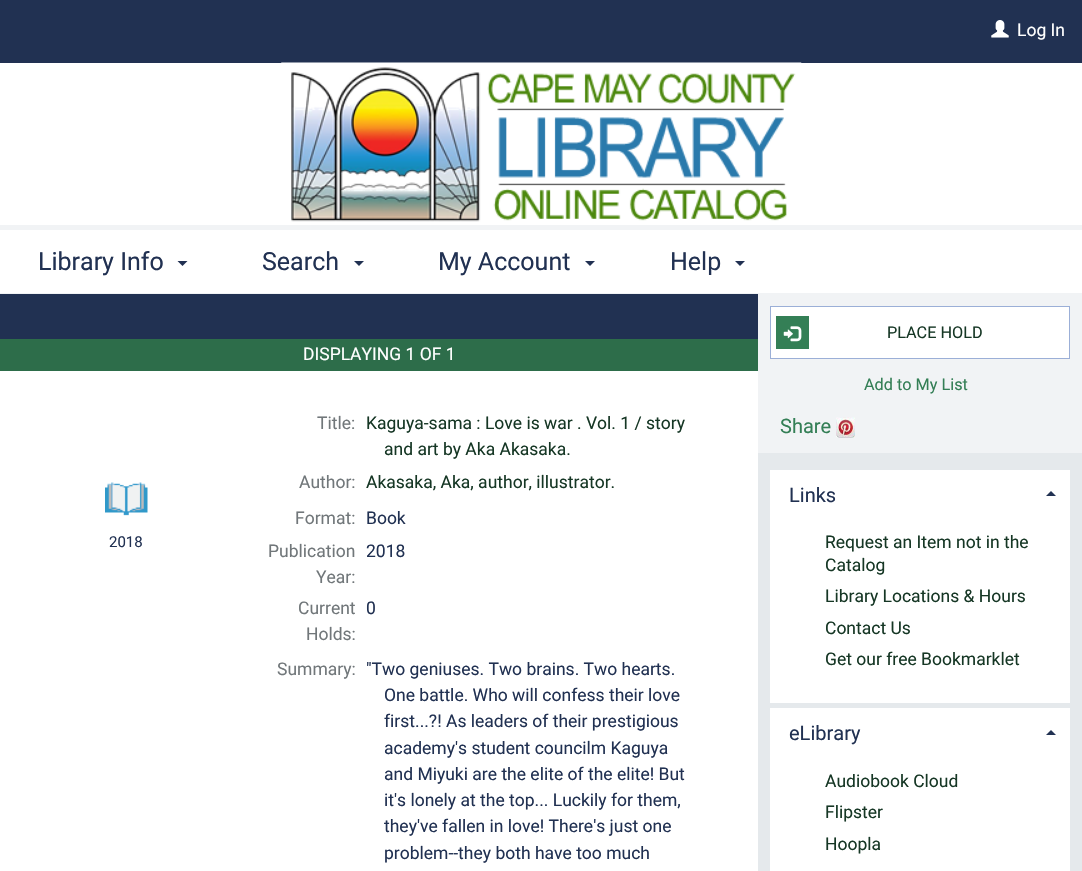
void draw(SkCanvas* canvas) {
	SkPaint fill;
	fill.setAntiAlias(true);
	auto makeFont = [&](const char* family, int weight, float size, bool italic = false) {
		SkFontStyle style(weight, SkFontStyle::kNormal_Width,
			italic ? SkFontStyle::kItalic_Slant : SkFontStyle::kUpright_Slant);
		SkFont result(fontMgr->matchFamilyStyle(family, style), size);
		result.setSubpixel(true);
		return result;
	};
	auto text = [&](const char* s, float x, float y, const SkFont& font) {
		canvas->drawString(s, x, y, font, fill);
	};
	auto box = [&](float l, float t, float r, float b) {
		canvas->drawRect(SkRect::MakeLTRB(l, t, r, b), fill);
	};
	auto picture = [&](const char* path, float l, float t, float r, float b) {
		auto image = SkImages::DeferredFromEncodedData(SkData::MakeFromFileName(path));
		canvas->drawImageRect(image, SkRect::MakeLTRB(l, t, r, b), SkSamplingOptions());
	};
	canvas->clear(0xFF213152);
	fill.setColor(0xFFF1F3F5);
	box(0, 293, 1082, 294);
	picture("image0.png", 991, 20, 1009, 38);
	fill.setColor(0xFFFFFFFF);
	box(0, 63, 1082, 225);
	picture("image1.png", 281, 62, 802, 222);
	box(0, 230, 1082, 293);
	fill.setColor(0xFFF1F3F5);
	box(0, 225, 1082, 230);
	fill.setColor(0xFF213152);
	canvas->drawPath(SkPathBuilder().moveTo(177.5f, 261).lineTo(187.5f, 261).lineTo(182.5f, 266).close().detach(), fill);
	canvas->drawPath(SkPathBuilder().moveTo(354, 261).lineTo(364, 261).lineTo(359, 266).close().detach(), fill);
	canvas->drawPath(SkPathBuilder().moveTo(585, 261).lineTo(595, 261).lineTo(590, 266).close().detach(), fill);
	canvas->drawPath(SkPathBuilder().moveTo(735, 261).lineTo(745, 261).lineTo(740, 266).close().detach(), fill);
	fill.setColor(0xFFE5E9EC);
	box(758, 453, 1082, 871);
	fill.setColor(0xFFFFFFFF);
	box(0, 371, 758, 871);
	fill.setColor(0xFF2D6D4A);
	box(0, 339, 758, 371);
	picture("image2.png", 105, 482, 148, 516);
	fill.setColor(0xFFF1F3F5);
	box(758, 294, 1082, 453);
	fill.setColor(0xFF9BAFD7);
	box(770, 358, 1070, 359);
	fill.setColor(0xFFFFFFFF);
	box(771, 307, 1069, 358);
	fill.setColor(0xFF9BAFD7);
	box(770, 306, 1070, 307);
	box(1069, 306, 1070, 358);
	box(770, 306, 771, 358);
	fill.setColor(0xFF347F56);
	box(776, 316, 809, 349);
	picture("image3.png", 783, 326, 802, 342);
	picture("image4.png", 836, 417, 855, 438);
	fill.setColor(0xFFFFFFFF);
	box(770, 470, 1070, 703);
	fill.setColor(0xFF213152);
	canvas->drawPath(SkPathBuilder().moveTo(1056, 496).lineTo(1046, 496).lineTo(1051, 491).close().detach(), fill);
	fill.setColor(0xFFFFFFFF);
	box(770, 708, 1070, 871);
	fill.setColor(0xFF213152);
	canvas->drawPath(SkPathBuilder().moveTo(1056, 735).lineTo(1046, 735).lineTo(1051, 730).close().detach(), fill);
	auto font1 = makeFont("Roboto", 400, 17.5f);
	fill.setColor(0xFFFFFFFF);
	text("Log In", 1017, 36, font1);
	auto font2 = makeFont("Roboto", 400, 25);
	fill.setColor(0xFF213152);
	text("Library Info", 38, 270, font2);
	text("Search", 262, 270, font2);
	text("My Account", 438, 270, font2);
	text("Help", 670, 270, font2);
	fill.setColor(0xFFFFFFFF);
	text("DISPLAYING 1 OF 1", 303, 360, font1);
	auto font3 = makeFont("Roboto", 400, 15);
	fill.setColor(0xFF213152);
	text("2018", 109, 547, font3);
	fill.setColor(0xFF71777A);
	text("Title:", 317, 429, font1);
	fill.setColor(0xFF163725);
	text("Kaguya-sama : Love is war . Vol. 1 / story", 366, 429, font1);
	text("and art by Aka Akasaka.", 384, 455, font1);
	fill.setColor(0xFF71777A);
	text("Author:", 299, 488, font1);
	fill.setColor(0xFF163725);
	text("Akasaka, Aka, author, illustrator.", 366, 488, font1);
	fill.setColor(0xFF71777A);
	text("Format:", 295, 524, font1);
	fill.setColor(0xFF213152);
	text("Book", 366, 524, font1);
	fill.setColor(0xFF71777A);
	text("Publication", 268, 557, font1);
	text("Year:", 316, 583, font1);
	fill.setColor(0xFF213152);
	text("2018", 366, 557, font1);
	fill.setColor(0xFF71777A);
	text("Current", 298, 614, font1);
	text("Holds:", 306, 640, font1);
	fill.setColor(0xFF213152);
	text("0", 366, 614, font1);
	fill.setColor(0xFF71777A);
	text("Summary:", 277, 675, font1);
	fill.setColor(0xFF213152);
	text("\"Two geniuses. Two brains. Two hearts.", 366, 675, font1);
	text("One battle. Who will confess their love", 384, 701, font1);
	text("first...?! As leaders of their prestigious", 384, 727, font1);
	text("academy's student councilm Kaguya", 384, 754, font1);
	text("and Miyuki are the elite of the elite! But", 384, 780, font1);
	text("it's lonely at the top... Luckily for them,", 384, 806, font1);
	text("they've fallen in love! There's just one", 384, 832, font1);
	text("problem--they both have too much", 384, 859, font1);
	auto font4 = makeFont("Roboto", 400, 16.25f);
	fill.setColor(0xFF163725);
	text("PLACE HOLD", 887, 338, font4);
	fill.setColor(0xFF347F56);
	text("Add to My List", 864, 390, font4);
	auto font5 = makeFont("Roboto", 400, 20);
	text("Share", 780, 433, font5);
	fill.setColor(0xFF213152);
	text("Links", 789, 502, font5);
	fill.setColor(0xFF163725);
	text("Request an Item not in the", 825, 548, font1);
	text("Catalog", 825, 571, font1);
	text("Library Locations & Hours", 825, 602, font1);
	text("Contact Us", 825, 634, font1);
	text("Get our free Bookmarklet", 825, 665, font1);
	fill.setColor(0xFF213152);
	text("eLibrary", 789, 740, font5);
	fill.setColor(0xFF163725);
	text("Audiobook Cloud", 825, 787, font1);
	text("Flipster", 825, 818, font1);
	text("Hoopla", 825, 850, font1);
}
